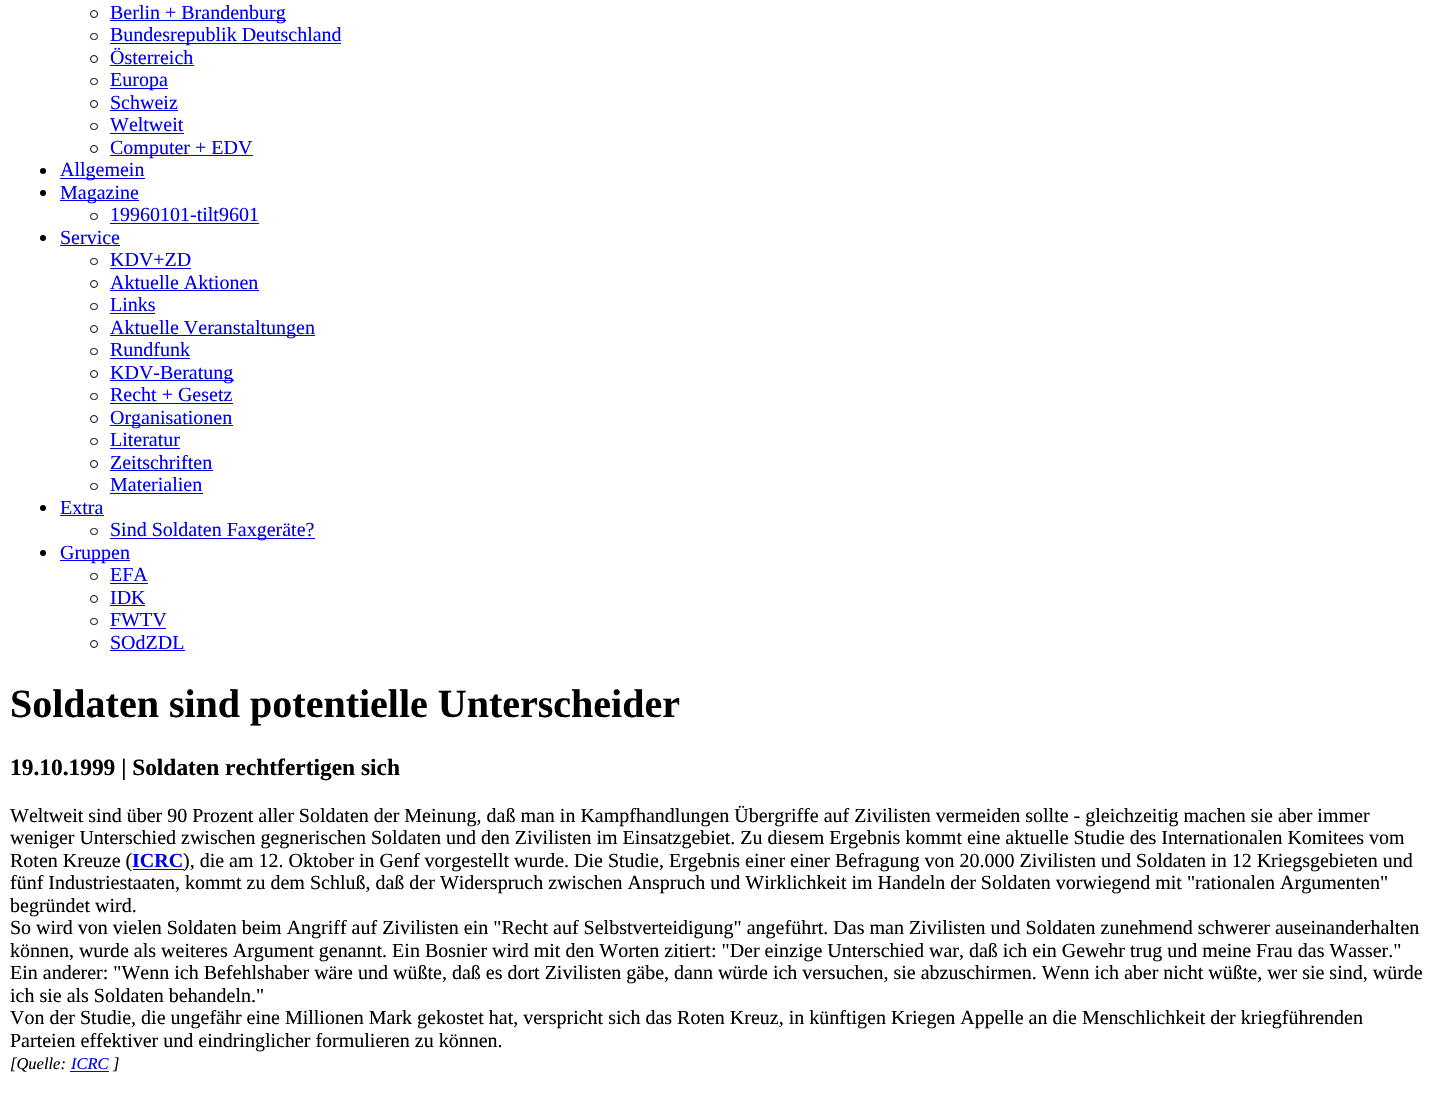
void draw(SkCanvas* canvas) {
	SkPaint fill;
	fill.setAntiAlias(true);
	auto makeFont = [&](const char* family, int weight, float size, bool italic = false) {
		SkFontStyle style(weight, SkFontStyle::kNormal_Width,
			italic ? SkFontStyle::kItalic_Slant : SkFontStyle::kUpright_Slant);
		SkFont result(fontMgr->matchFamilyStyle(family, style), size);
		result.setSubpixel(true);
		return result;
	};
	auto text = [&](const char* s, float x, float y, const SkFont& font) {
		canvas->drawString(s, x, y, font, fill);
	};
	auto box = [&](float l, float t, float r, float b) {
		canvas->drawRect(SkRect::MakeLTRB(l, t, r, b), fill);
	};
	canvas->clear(0xFFFFFFFF);
	fill.setStyle(SkPaint::kStroke_Style);
	fill.setStrokeWidth(1);
	fill.setColor(0xFF000000);
	canvas->drawCircle(94, 14, 3.5f, fill);
	fill.setStyle(SkPaint::kFill_Style);
	fill.setColor(0xFF0000EE);
	box(110, 20, 286, 21);
	fill.setStyle(SkPaint::kStroke_Style);
	fill.setColor(0xFF000000);
	canvas->drawRoundRect(SkRect::MakeLTRB(90.5f, 33.5f, 97.5f, 39.5f), 3, 3, fill);
	fill.setStyle(SkPaint::kFill_Style);
	fill.setColor(0xFF0000EE);
	box(110, 43, 341, 44);
	fill.setStyle(SkPaint::kStroke_Style);
	fill.setColor(0xFF000000);
	canvas->drawCircle(94, 59, 3.5f, fill);
	fill.setStyle(SkPaint::kFill_Style);
	fill.setColor(0xFF0000EE);
	box(110, 65, 194, 66);
	fill.setStyle(SkPaint::kStroke_Style);
	fill.setColor(0xFF000000);
	canvas->drawRoundRect(SkRect::MakeLTRB(90.5f, 78.5f, 97.5f, 84.5f), 3, 3, fill);
	fill.setStyle(SkPaint::kFill_Style);
	fill.setColor(0xFF0000EE);
	box(110, 88, 168, 89);
	fill.setStyle(SkPaint::kStroke_Style);
	fill.setColor(0xFF000000);
	canvas->drawCircle(94, 104, 3.5f, fill);
	fill.setStyle(SkPaint::kFill_Style);
	fill.setColor(0xFF0000EE);
	box(110, 110, 178, 111);
	fill.setStyle(SkPaint::kStroke_Style);
	fill.setColor(0xFF000000);
	canvas->drawRoundRect(SkRect::MakeLTRB(90.5f, 123.5f, 97.5f, 129.5f), 3, 3, fill);
	fill.setStyle(SkPaint::kFill_Style);
	fill.setColor(0xFF0000EE);
	box(110, 133, 184, 134);
	fill.setStyle(SkPaint::kStroke_Style);
	fill.setColor(0xFF000000);
	canvas->drawCircle(94, 149, 3.5f, fill);
	fill.setStyle(SkPaint::kFill_Style);
	fill.setColor(0xFF0000EE);
	box(110, 155, 253, 156);
	fill.setColor(0xFF000000);
	canvas->drawCircle(43, 171, 3, fill);
	fill.setColor(0xFF0000EE);
	box(60, 178, 145, 179);
	fill.setColor(0xFF000000);
	canvas->drawCircle(43, 193, 3, fill);
	fill.setColor(0xFF0000EE);
	box(60, 200, 139, 201);
	fill.setStyle(SkPaint::kStroke_Style);
	fill.setColor(0xFF000000);
	canvas->drawRoundRect(SkRect::MakeLTRB(90.5f, 213.5f, 97.5f, 219.5f), 3, 3, fill);
	fill.setStyle(SkPaint::kFill_Style);
	fill.setColor(0xFF0000EE);
	box(110, 223, 259, 224);
	fill.setColor(0xFF000000);
	canvas->drawCircle(43, 238, 3, fill);
	fill.setColor(0xFF0000EE);
	box(60, 245, 120, 246);
	fill.setStyle(SkPaint::kStroke_Style);
	fill.setColor(0xFF000000);
	canvas->drawRoundRect(SkRect::MakeLTRB(90.5f, 258.5f, 97.5f, 264.5f), 3, 3, fill);
	fill.setStyle(SkPaint::kFill_Style);
	fill.setColor(0xFF0000EE);
	box(110, 268, 191, 269);
	fill.setStyle(SkPaint::kStroke_Style);
	fill.setColor(0xFF000000);
	canvas->drawCircle(94, 284, 3.5f, fill);
	fill.setStyle(SkPaint::kFill_Style);
	fill.setColor(0xFF0000EE);
	box(110, 290, 259, 291);
	fill.setStyle(SkPaint::kStroke_Style);
	fill.setColor(0xFF000000);
	canvas->drawRoundRect(SkRect::MakeLTRB(90.5f, 303.5f, 97.5f, 309.5f), 3, 3, fill);
	fill.setStyle(SkPaint::kFill_Style);
	fill.setColor(0xFF0000EE);
	box(110, 313, 155, 314);
	fill.setStyle(SkPaint::kStroke_Style);
	fill.setColor(0xFF000000);
	canvas->drawCircle(94, 329, 3.5f, fill);
	fill.setStyle(SkPaint::kFill_Style);
	fill.setColor(0xFF0000EE);
	box(110, 335, 315, 336);
	fill.setStyle(SkPaint::kStroke_Style);
	fill.setColor(0xFF000000);
	canvas->drawRoundRect(SkRect::MakeLTRB(90.5f, 348.5f, 97.5f, 354.5f), 3, 3, fill);
	fill.setStyle(SkPaint::kFill_Style);
	fill.setColor(0xFF0000EE);
	box(110, 358, 190, 359);
	fill.setStyle(SkPaint::kStroke_Style);
	fill.setColor(0xFF000000);
	canvas->drawCircle(94, 374, 3.5f, fill);
	fill.setStyle(SkPaint::kFill_Style);
	fill.setColor(0xFF0000EE);
	box(110, 380, 234, 381);
	fill.setStyle(SkPaint::kStroke_Style);
	fill.setColor(0xFF000000);
	canvas->drawRoundRect(SkRect::MakeLTRB(90.5f, 393.5f, 97.5f, 399.5f), 3, 3, fill);
	fill.setStyle(SkPaint::kFill_Style);
	fill.setColor(0xFF0000EE);
	box(110, 403, 233, 404);
	fill.setStyle(SkPaint::kStroke_Style);
	fill.setColor(0xFF000000);
	canvas->drawCircle(94, 419, 3.5f, fill);
	fill.setStyle(SkPaint::kFill_Style);
	fill.setColor(0xFF0000EE);
	box(110, 425, 233, 426);
	fill.setStyle(SkPaint::kStroke_Style);
	fill.setColor(0xFF000000);
	canvas->drawRoundRect(SkRect::MakeLTRB(90.5f, 438.5f, 97.5f, 444.5f), 3, 3, fill);
	fill.setStyle(SkPaint::kFill_Style);
	fill.setColor(0xFF0000EE);
	box(110, 448, 180, 449);
	fill.setStyle(SkPaint::kStroke_Style);
	fill.setColor(0xFF000000);
	canvas->drawCircle(94, 464, 3.5f, fill);
	fill.setStyle(SkPaint::kFill_Style);
	fill.setColor(0xFF0000EE);
	box(110, 470, 213, 471);
	fill.setStyle(SkPaint::kStroke_Style);
	fill.setColor(0xFF000000);
	canvas->drawRoundRect(SkRect::MakeLTRB(90.5f, 483.5f, 97.5f, 489.5f), 3, 3, fill);
	fill.setStyle(SkPaint::kFill_Style);
	fill.setColor(0xFF0000EE);
	box(110, 493, 203, 494);
	fill.setColor(0xFF000000);
	canvas->drawCircle(43, 508, 3, fill);
	fill.setColor(0xFF0000EE);
	box(60, 515, 104, 516);
	fill.setStyle(SkPaint::kStroke_Style);
	fill.setColor(0xFF000000);
	canvas->drawRoundRect(SkRect::MakeLTRB(90.5f, 528.5f, 97.5f, 534.5f), 3, 3, fill);
	fill.setStyle(SkPaint::kFill_Style);
	fill.setColor(0xFF0000EE);
	box(110, 538, 315, 539);
	fill.setColor(0xFF000000);
	canvas->drawCircle(43, 553, 3, fill);
	fill.setColor(0xFF0000EE);
	box(60, 560, 130, 561);
	fill.setStyle(SkPaint::kStroke_Style);
	fill.setColor(0xFF000000);
	canvas->drawRoundRect(SkRect::MakeLTRB(90.5f, 573.5f, 97.5f, 579.5f), 3, 3, fill);
	fill.setStyle(SkPaint::kFill_Style);
	fill.setColor(0xFF0000EE);
	box(110, 583, 148, 584);
	fill.setStyle(SkPaint::kStroke_Style);
	fill.setColor(0xFF000000);
	canvas->drawCircle(94, 599, 3.5f, fill);
	fill.setStyle(SkPaint::kFill_Style);
	fill.setColor(0xFF0000EE);
	box(110, 605, 145, 606);
	fill.setStyle(SkPaint::kStroke_Style);
	fill.setColor(0xFF000000);
	canvas->drawRoundRect(SkRect::MakeLTRB(90.5f, 618.5f, 97.5f, 624.5f), 3, 3, fill);
	fill.setStyle(SkPaint::kFill_Style);
	fill.setColor(0xFF0000EE);
	box(110, 628, 166, 629);
	fill.setStyle(SkPaint::kStroke_Style);
	fill.setColor(0xFF000000);
	canvas->drawCircle(94, 644, 3.5f, fill);
	fill.setStyle(SkPaint::kFill_Style);
	fill.setColor(0xFF0000EE);
	box(110, 650, 185, 651);
	box(133, 869, 184, 870);
	box(70, 1071, 109, 1072);
	auto font1 = makeFont("Liberation Serif", 400, 20);
	text("Berlin + Brandenburg", 110, 19, font1);
	text("Bundesrepublik Deutschland", 110, 41, font1);
	text("Österreich", 110, 64, font1);
	text("Europa", 110, 86, font1);
	text("Schweiz", 110, 109, font1);
	text("Weltweit", 110, 131, font1);
	text("Computer + EDV", 110, 154, font1);
	text("Allgemein", 60, 176, font1);
	text("Magazine", 60, 199, font1);
	text("19960101-tilt9601", 110, 221, font1);
	text("Service", 60, 244, font1);
	text("KDV+ZD", 110, 266, font1);
	text("Aktuelle Aktionen", 110, 289, font1);
	text("Links", 110, 311, font1);
	text("Aktuelle Veranstaltungen", 110, 334, font1);
	text("Rundfunk", 110, 356, font1);
	text("KDV-Beratung", 110, 379, font1);
	text("Recht + Gesetz", 110, 401, font1);
	text("Organisationen", 110, 424, font1);
	text("Literatur", 110, 446, font1);
	text("Zeitschriften", 110, 469, font1);
	text("Materialien", 110, 491, font1);
	text("Extra", 60, 514, font1);
	text("Sind Soldaten Faxgeräte?", 110, 536, font1);
	text("Gruppen", 60, 559, font1);
	text("EFA", 110, 581, font1);
	text("IDK", 110, 604, font1);
	text("FWTV", 110, 626, font1);
	text("SOdZDL", 110, 649, font1);
	auto font2 = makeFont("Liberation Serif", 700, 40);
	fill.setColor(0xFF000000);
	text("Soldaten sind potentielle Unterscheider", 10, 717, font2);
	auto font3 = makeFont("Liberation Serif", 700, 23.4f);
	text("19.10.1999 | Soldaten rechtfertigen sich", 10, 775, font3);
	text("Weltweit sind über 90 Prozent aller Soldaten der Meinung, daß man in Kampfhandlungen Übergriffe auf Zivilisten vermeiden sollte - gleichzeitig machen sie aber immer", 10, 822, font1);
	text("weniger Unterschied zwischen gegnerischen Soldaten und den Zivilisten im Einsatzgebiet. Zu diesem Ergebnis kommt eine aktuelle Studie des Internationalen Komitees vom", 10, 844, font1);
	text("Roten Kreuze (", 10, 867, font1);
	auto font4 = makeFont("Liberation Serif", 700, 20);
	fill.setColor(0xFF0000EE);
	text("ICRC", 132, 867, font4);
	fill.setColor(0xFF000000);
	text("), die am 12. Oktober in Genf vorgestellt wurde. Die Studie, Ergebnis einer einer Befragung von 20.000 Zivilisten und Soldaten in 12 Kriegsgebieten und", 183, 867, font1);
	text("fünf Industriestaaten, kommt zu dem Schluß, daß der Widerspruch zwischen Anspruch und Wirklichkeit im Handeln der Soldaten vorwiegend mit \"rationalen Argumenten\"", 10, 889, font1);
	text("begründet wird.", 10, 912, font1);
	text("So wird von vielen Soldaten beim Angriff auf Zivilisten ein \"Recht auf Selbstverteidigung\" angeführt. Das man Zivilisten und Soldaten zunehmend schwerer auseinanderhalten", 10, 934, font1);
	text("können, wurde als weiteres Argument genannt. Ein Bosnier wird mit den Worten zitiert: \"Der einzige Unterschied war, daß ich ein Gewehr trug und meine Frau das Wasser.\"", 10, 957, font1);
	text("Ein anderer: \"Wenn ich Befehlshaber wäre und wüßte, daß es dort Zivilisten gäbe, dann würde ich versuchen, sie abzuschirmen. Wenn ich aber nicht wüßte, wer sie sind, würde", 10, 979, font1);
	text("ich sie als Soldaten behandeln.\"", 10, 1002, font1);
	text("Von der Studie, die ungefähr eine Millionen Mark gekostet hat, verspricht sich das Roten Kreuz, in künftigen Kriegen Appelle an die Menschlichkeit der kriegführenden", 10, 1024, font1);
	text("Parteien effektiver und eindringlicher formulieren zu können.", 10, 1047, font1);
	auto font5 = makeFont("Liberation Serif", 400, 16.5f, true);
	text("[Quelle:", 10, 1069, font5);
	fill.setColor(0xFF0000EE);
	text("ICRC", 71, 1069, font5);
	fill.setColor(0xFF000000);
	text("]", 113, 1069, font5);
}
